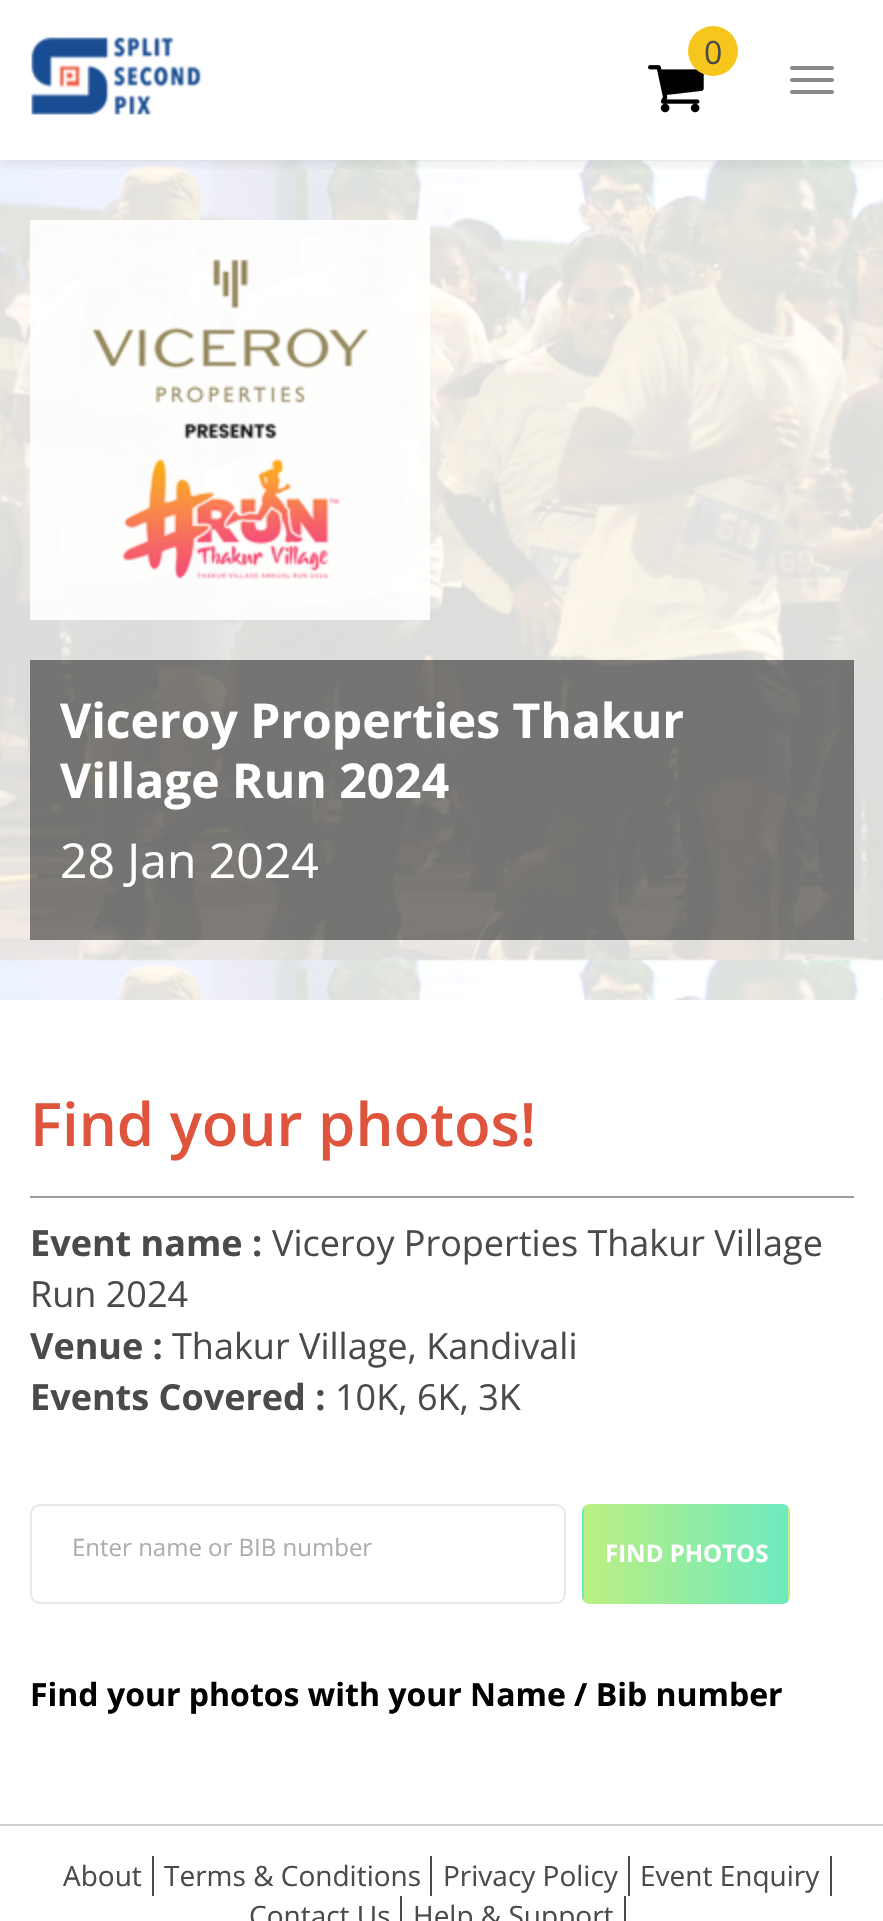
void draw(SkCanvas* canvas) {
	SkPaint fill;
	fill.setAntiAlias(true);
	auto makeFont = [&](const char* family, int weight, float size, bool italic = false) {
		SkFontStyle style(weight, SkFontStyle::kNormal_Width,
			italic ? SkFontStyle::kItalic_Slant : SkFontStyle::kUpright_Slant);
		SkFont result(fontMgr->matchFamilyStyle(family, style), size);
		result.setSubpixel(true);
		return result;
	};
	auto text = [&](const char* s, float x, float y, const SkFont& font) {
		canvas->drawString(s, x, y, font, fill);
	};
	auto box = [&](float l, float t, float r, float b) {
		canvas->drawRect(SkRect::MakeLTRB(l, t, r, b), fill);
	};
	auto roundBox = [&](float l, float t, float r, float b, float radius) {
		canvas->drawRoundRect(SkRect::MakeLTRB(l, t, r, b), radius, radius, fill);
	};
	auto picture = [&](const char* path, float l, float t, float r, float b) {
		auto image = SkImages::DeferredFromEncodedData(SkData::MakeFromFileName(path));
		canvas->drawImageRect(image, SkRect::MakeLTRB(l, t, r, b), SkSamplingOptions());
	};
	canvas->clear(0xFFFFFFFF);
	picture("image2.png", 0, 160, 883, 1000);
	canvas->save();
	canvas->clipRect(SkRect::MakeLTRB(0, 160, 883, 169));
	fill.setColor(0x2E000000);
	fill.setMaskFilter(SkMaskFilter::MakeBlur(kNormal_SkBlurStyle, 12));
	canvas->drawRect(SkRect::MakeLTRB(0, -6, 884, 154), fill);
	fill.setMaskFilter(nullptr);
	canvas->restore();
	picture("image0.png", 31, 37, 202, 115);
	picture("image1.png", 648, 65, 704, 113);
	fill.setColor(0xFFF6C61C);
	canvas->drawCircle(713, 51, 25, fill);
	fill.setColor(0xFF888888);
	roundBox(790, 66, 834, 70, 2);
	roundBox(790, 78, 834, 82, 2);
	roundBox(790, 90, 834, 94, 2);
	picture("image3.png", 30, 220, 430, 620);
	fill.setColor(0x7A000000);
	box(30, 660, 854, 940);
	fill.setColor(0xFF9B9B9B);
	box(30, 1196, 854, 1198);
	fill.setStyle(SkPaint::kStroke_Style);
	fill.setStrokeWidth(2);
	fill.setColor(0xFFE8E8E8);
	canvas->drawRoundRect(SkRect::MakeLTRB(31, 1505, 565, 1603), 9, 9, fill);
	canvas->save();
	canvas->clipPath(SkPathBuilder().moveTo(590, 1504).lineTo(782, 1504).cubicTo(786.5f, 1504, 790, 1507.5f, 790, 1512).lineTo(790, 1596).cubicTo(790, 1600.5f, 786.5f, 1604, 782, 1604).lineTo(590, 1604).cubicTo(585.5f, 1604, 582, 1600.5f, 582, 1596).lineTo(582, 1512).cubicTo(582, 1507.5f, 585.5f, 1504, 590, 1504).close().detach(), true);
	fill.setStyle(SkPaint::kFill_Style);
	{
		const SkColor colors[] = {0xFFBBEF82, 0xFF6EEABF};
		const float stops[] = {0.01f, 1};
		const SkPoint ends[] = {{380, 1554}, {584, 1554}};
		fill.setShader(SkGradientShader::MakeLinear(ends, colors, stops, 2, SkTileMode::kClamp));
		fill.setAlpha(255);
	}
	box(582, 1504, 584, 1604);
	{
		const SkColor colors[] = {0xFFBBEF82, 0xFF6EEABF};
		const float stops[] = {0.01f, 1};
		const SkPoint ends[] = {{584, 1554}, {788, 1554}};
		fill.setShader(SkGradientShader::MakeLinear(ends, colors, stops, 2, SkTileMode::kClamp));
		fill.setAlpha(255);
	}
	box(584, 1504, 788, 1604);
	{
		const SkColor colors[] = {0xFFBBEF82, 0xFF6EEABF};
		const float stops[] = {0.01f, 1};
		const SkPoint ends[] = {{788, 1554}, {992, 1554}};
		fill.setShader(SkGradientShader::MakeLinear(ends, colors, stops, 2, SkTileMode::kClamp));
		fill.setAlpha(255);
	}
	box(788, 1504, 790, 1604);
	canvas->restore();
	fill.setShader(nullptr);
	fill.setColor(0xFFCECECE);
	box(0, 1824, 883, 1826);
	fill.setColor(0xFF4A4A4A);
	box(152, 1856, 154, 1896);
	box(430, 1856, 432, 1896);
	box(628, 1856, 630, 1896);
	box(830, 1856, 832, 1896);
	box(400, 1896, 402, 1921);
	box(624, 1896, 626, 1921);
	auto font1 = makeFont("Open Sans", 400, 32);
	text("0", 704, 64, font1);
	auto font2 = makeFont("Open Sans", 700, 48);
	fill.setColor(0xFFFFFFFF);
	text("Viceroy Properties Thakur", 60, 738, font2);
	text("Village Run 2024", 60, 798, font2);
	auto font3 = makeFont("Open Sans", 400, 48);
	text("28 Jan 2024", 60, 878, font3);
	auto font4 = makeFont("Open Sans", 600, 60);
	fill.setColor(0xFFDF543D);
	text("Find your photos!", 30, 1146, font4);
	auto font5 = makeFont("Open Sans", 700, 36);
	fill.setColor(0xFF4A4A4A);
	text("Event name :", 30, 1256, font5);
	auto font6 = makeFont("Open Sans", 400, 36);
	text("Viceroy Properties Thakur Village", 272, 1256, font6);
	text("Run 2024", 30, 1307, font6);
	text("Venue :", 30, 1359, font5);
	text("Thakur Village, Kandivali", 172, 1359, font6);
	text("Events Covered :", 30, 1410, font5);
	text("10K, 6K, 3K", 335, 1410, font6);
	auto font7 = makeFont("Open Sans", 400, 24);
	fill.setColor(0xFFADADAD);
	text("Enter name or BIB number", 72, 1556, font7);
	auto font8 = makeFont("Open Sans", 700, 24);
	fill.setColor(0xFFFFFFFF);
	text("FIND PHOTOS", 605, 1562, font8);
	auto font9 = makeFont("Open Sans", 700, 32);
	fill.setColor(0xFF000000);
	text("Find your photos with your Name / Bib number", 30, 1706, font9);
	auto font10 = makeFont("Open Sans", 400, 28);
	fill.setColor(0xFF4A4A4A);
	text("About", 63, 1886, font10);
	text("Terms & Conditions", 164, 1886, font10);
	text("Privacy Policy", 443, 1886, font10);
	text("Event Enquiry", 640, 1886, font10);
	text("Contact Us", 249, 1926, font10);
	text("Help & Support", 413, 1926, font10);
}
